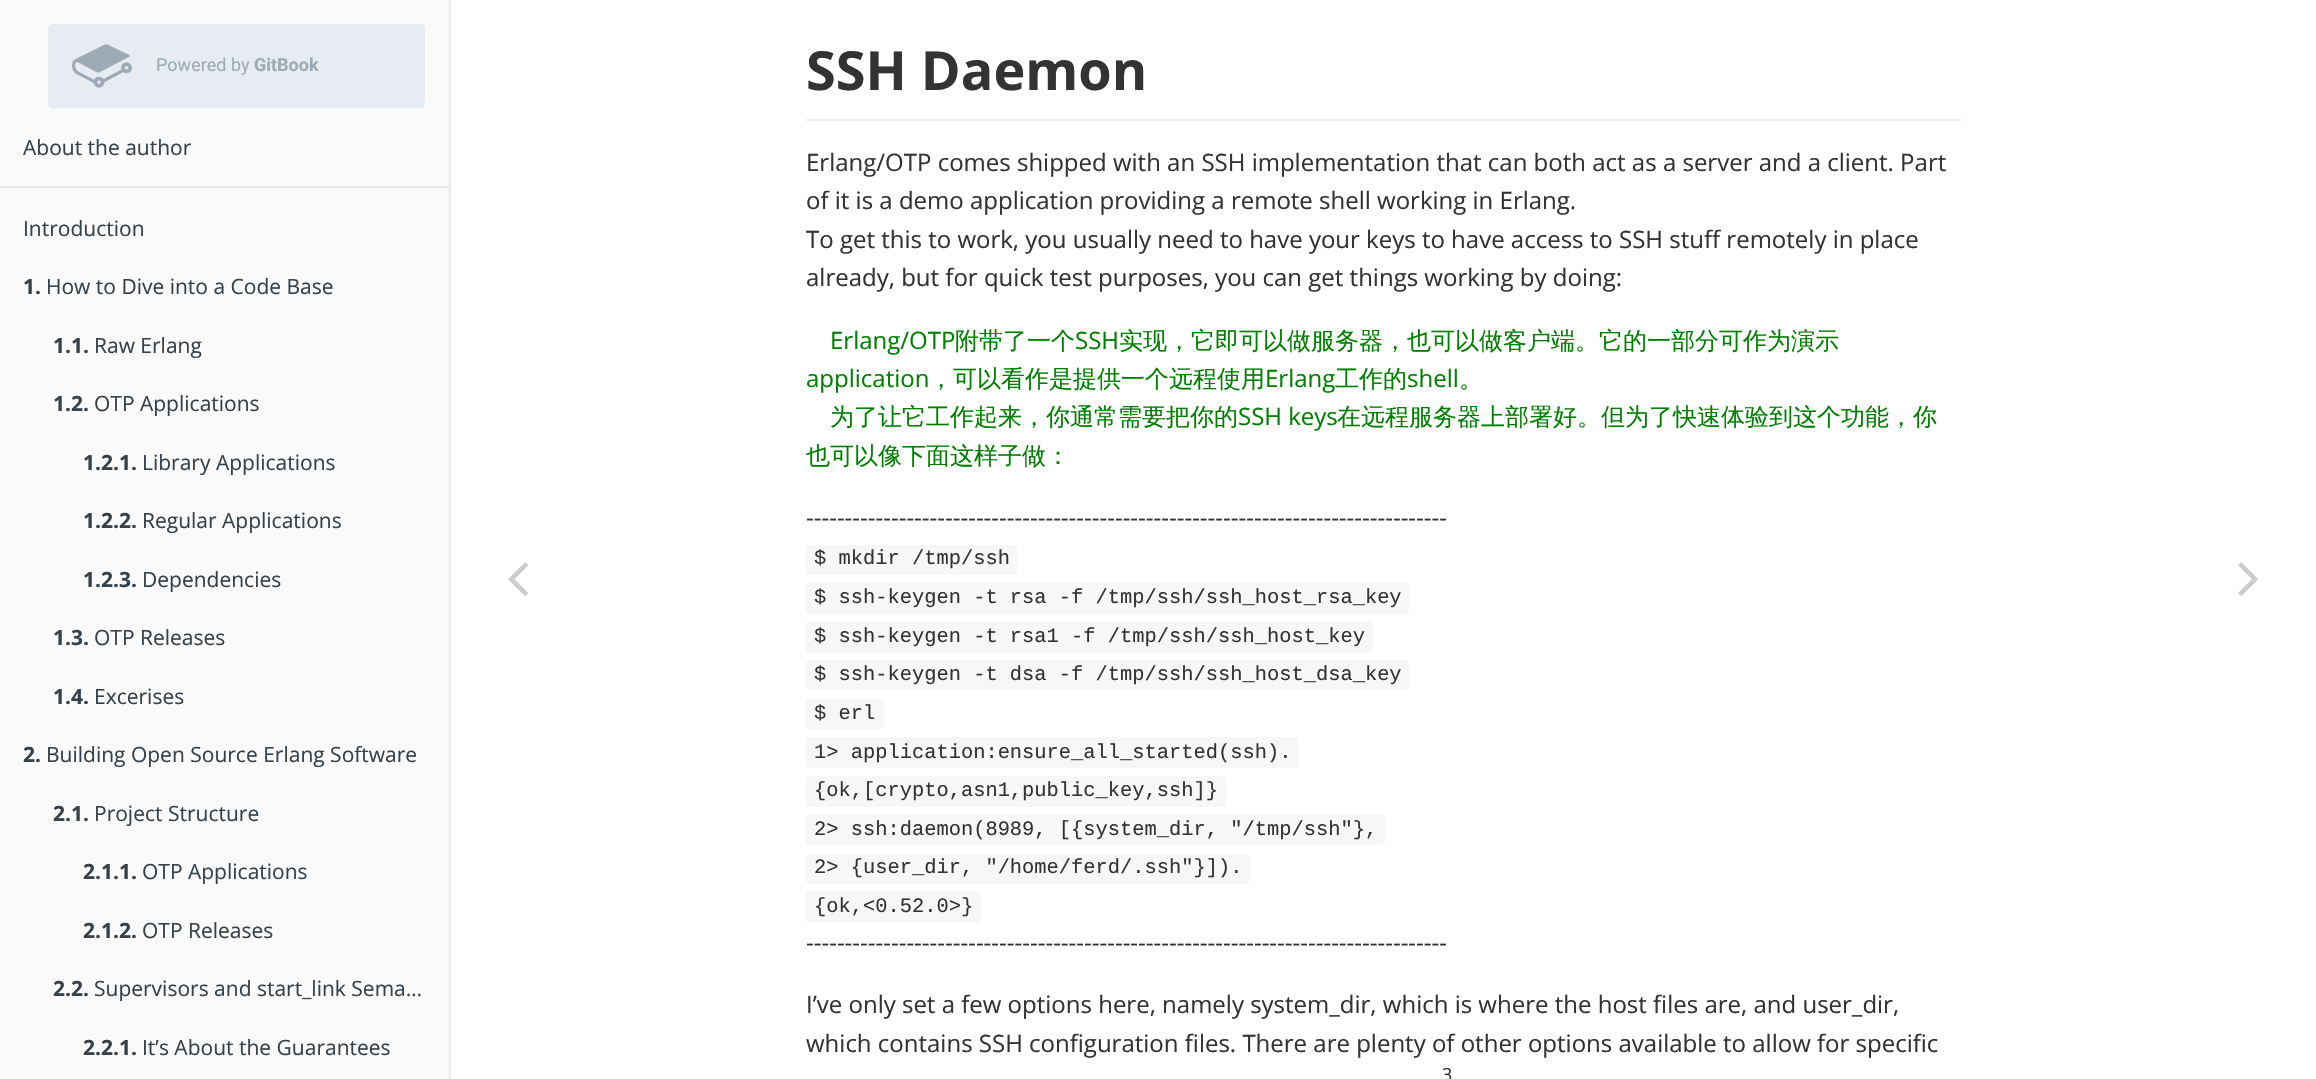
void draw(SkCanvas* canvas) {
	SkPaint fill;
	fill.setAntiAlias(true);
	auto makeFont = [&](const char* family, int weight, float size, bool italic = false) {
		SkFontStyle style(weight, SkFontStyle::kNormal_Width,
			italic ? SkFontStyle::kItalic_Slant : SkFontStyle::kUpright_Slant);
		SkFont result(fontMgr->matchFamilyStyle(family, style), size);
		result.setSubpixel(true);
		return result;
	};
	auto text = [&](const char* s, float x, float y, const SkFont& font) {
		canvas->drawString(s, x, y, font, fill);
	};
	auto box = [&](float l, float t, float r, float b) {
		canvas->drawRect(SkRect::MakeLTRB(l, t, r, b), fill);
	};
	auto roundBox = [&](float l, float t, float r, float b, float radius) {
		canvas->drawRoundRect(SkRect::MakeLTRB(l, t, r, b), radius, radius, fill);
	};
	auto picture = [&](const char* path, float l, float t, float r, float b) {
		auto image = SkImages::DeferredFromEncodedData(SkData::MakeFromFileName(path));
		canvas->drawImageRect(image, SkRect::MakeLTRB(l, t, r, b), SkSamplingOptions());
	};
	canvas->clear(0xFFFFFFFF);
	fill.setColor(0xFFEDEDED);
	box(450, 0, 451, 1079);
	fill.setColor(0xFFFAFAFA);
	box(0, 0, 449, 1079);
	fill.setColor(0xFFE8E8E8);
	box(449, 0, 450, 1079);
	fill.setColor(0xFFE6ECF1);
	roundBox(48, 24, 425, 108, 5);
	picture("image0.png", 72, 44, 132, 88);
	fill.setColor(0xFFE9E9E9);
	box(0, 186, 449, 188);
	picture("image1.png", 508, 562, 528, 596);
	fill.setColor(0xFFEEEEEE);
	box(806, 119, 1961, 121);
	fill.setColor(0xFFF7F7F7);
	canvas->drawPath(SkPathBuilder().moveTo(809.5f, 545).lineTo(813, 545).lineTo(813, 575).lineTo(809.5f, 575).cubicTo(807.5f, 575, 806, 573.5f, 806, 571.5f).lineTo(806, 548.5f).cubicTo(806, 546.5f, 807.5f, 545, 809.5f, 545).close().detach(), fill);
	box(813, 545, 1010, 575);
	canvas->drawPath(SkPathBuilder().moveTo(1010, 545).lineTo(1013.5f, 545).cubicTo(1015.5f, 545, 1017, 546.5f, 1017, 548.5f).lineTo(1017, 571.5f).cubicTo(1017, 573.5f, 1015.5f, 575, 1013.5f, 575).lineTo(1010, 575).close().detach(), fill);
	canvas->drawPath(SkPathBuilder().moveTo(809.5f, 582).lineTo(813, 582).lineTo(813, 614).lineTo(809.5f, 614).cubicTo(807.5f, 614, 806, 612.5f, 806, 610.5f).lineTo(806, 585.5f).cubicTo(806, 583.5f, 807.5f, 582, 809.5f, 582).close().detach(), fill);
	box(813, 582, 1401, 614);
	canvas->drawPath(SkPathBuilder().moveTo(1401, 582).lineTo(1405, 582).cubicTo(1407, 582, 1409, 584, 1409, 586).lineTo(1409, 610).cubicTo(1409, 612, 1407, 614, 1405, 614).lineTo(1401, 614).close().detach(), fill);
	canvas->drawPath(SkPathBuilder().moveTo(809.5f, 621).lineTo(813, 621).lineTo(813, 653).lineTo(809.5f, 653).cubicTo(807.5f, 653, 806, 651.5f, 806, 649.5f).lineTo(806, 624.5f).cubicTo(806, 622.5f, 807.5f, 621, 809.5f, 621).close().detach(), fill);
	box(813, 621, 1365, 653);
	canvas->drawPath(SkPathBuilder().moveTo(1365, 621).lineTo(1369, 621).cubicTo(1371, 621, 1373, 623, 1373, 625).lineTo(1373, 649).cubicTo(1373, 651, 1371, 653, 1369, 653).lineTo(1365, 653).close().detach(), fill);
	canvas->drawPath(SkPathBuilder().moveTo(809.5f, 660).lineTo(813, 660).lineTo(813, 690).lineTo(809.5f, 690).cubicTo(807.5f, 690, 806, 688.5f, 806, 686.5f).lineTo(806, 663.5f).cubicTo(806, 661.5f, 807.5f, 660, 809.5f, 660).close().detach(), fill);
	box(813, 660, 1401, 690);
	canvas->drawPath(SkPathBuilder().moveTo(1401, 660).lineTo(1405, 660).cubicTo(1407, 660, 1409, 662, 1409, 664).lineTo(1409, 686).cubicTo(1409, 688, 1407, 690, 1405, 690).lineTo(1401, 690).close().detach(), fill);
	canvas->drawPath(SkPathBuilder().moveTo(809.5f, 699).lineTo(813, 699).lineTo(813, 729).lineTo(809.5f, 729).cubicTo(807.5f, 729, 806, 727.5f, 806, 725.5f).lineTo(806, 702.5f).cubicTo(806, 700.5f, 807.5f, 699, 809.5f, 699).close().detach(), fill);
	box(813, 699, 875, 729);
	canvas->drawPath(SkPathBuilder().moveTo(875, 699).lineTo(879.5f, 699).cubicTo(882, 699, 884, 701, 884, 703.5f).lineTo(884, 724.5f).cubicTo(884, 727, 882, 729, 879.5f, 729).lineTo(875, 729).close().detach(), fill);
	canvas->drawPath(SkPathBuilder().moveTo(809.5f, 737).lineTo(813, 737).lineTo(813, 768).lineTo(809.5f, 768).cubicTo(807.5f, 768, 806, 766.5f, 806, 764.5f).lineTo(806, 740.5f).cubicTo(806, 738.5f, 807.5f, 737, 809.5f, 737).close().detach(), fill);
	box(813, 737, 1292, 768);
	canvas->drawPath(SkPathBuilder().moveTo(1292, 737).lineTo(1295.5f, 737).cubicTo(1297.5f, 737, 1299, 738.5f, 1299, 740.5f).lineTo(1299, 764.5f).cubicTo(1299, 766.5f, 1297.5f, 768, 1295.5f, 768).lineTo(1292, 768).close().detach(), fill);
	canvas->drawPath(SkPathBuilder().moveTo(809.5f, 776).lineTo(813, 776).lineTo(813, 807).lineTo(809.5f, 807).cubicTo(807.5f, 807, 806, 805.5f, 806, 803.5f).lineTo(806, 779.5f).cubicTo(806, 777.5f, 807.5f, 776, 809.5f, 776).close().detach(), fill);
	box(813, 776, 1218, 807);
	canvas->drawPath(SkPathBuilder().moveTo(1218, 776).lineTo(1222, 776).cubicTo(1224, 776, 1226, 778, 1226, 780).lineTo(1226, 803).cubicTo(1226, 805, 1224, 807, 1222, 807).lineTo(1218, 807).close().detach(), fill);
	canvas->drawPath(SkPathBuilder().moveTo(809.5f, 815).lineTo(813, 815).lineTo(813, 845).lineTo(809.5f, 845).cubicTo(807.5f, 845, 806, 843.5f, 806, 841.5f).lineTo(806, 818.5f).cubicTo(806, 816.5f, 807.5f, 815, 809.5f, 815).close().detach(), fill);
	box(813, 815, 1377, 845);
	canvas->drawPath(SkPathBuilder().moveTo(1377, 815).lineTo(1381, 815).cubicTo(1383, 815, 1385, 817, 1385, 819).lineTo(1385, 841).cubicTo(1385, 843, 1383, 845, 1381, 845).lineTo(1377, 845).close().detach(), fill);
	canvas->drawPath(SkPathBuilder().moveTo(809.5f, 854).lineTo(813, 854).lineTo(813, 884).lineTo(809.5f, 884).cubicTo(807.5f, 884, 806, 882.5f, 806, 880.5f).lineTo(806, 857.5f).cubicTo(806, 855.5f, 807.5f, 854, 809.5f, 854).close().detach(), fill);
	box(813, 854, 1242, 884);
	canvas->drawPath(SkPathBuilder().moveTo(1242, 854).lineTo(1246, 854).cubicTo(1248, 854, 1250, 856, 1250, 858).lineTo(1250, 880).cubicTo(1250, 882, 1248, 884, 1246, 884).lineTo(1242, 884).close().detach(), fill);
	canvas->drawPath(SkPathBuilder().moveTo(809.5f, 891).lineTo(813, 891).lineTo(813, 923).lineTo(809.5f, 923).cubicTo(807.5f, 923, 806, 921.5f, 806, 919.5f).lineTo(806, 894.5f).cubicTo(806, 892.5f, 807.5f, 891, 809.5f, 891).close().detach(), fill);
	box(813, 891, 974, 923);
	canvas->drawPath(SkPathBuilder().moveTo(974, 891).lineTo(977.5f, 891).cubicTo(979.5f, 891, 981, 892.5f, 981, 894.5f).lineTo(981, 919.5f).cubicTo(981, 921.5f, 979.5f, 923, 977.5f, 923).lineTo(974, 923).close().detach(), fill);
	picture("image2.png", 2238, 562, 2258, 596);
	auto font1 = makeFont("Roboto", 400, 18);
	fill.setColor(0xFF9DAAB6);
	text("Powered by", 156, 71, font1);
	auto font2 = makeFont("Roboto", 700, 18);
	text("GitBook", 254, 71, font2);
	auto font3 = makeFont("Open Sans", 400, 21);
	fill.setColor(0xFF364149);
	text("About the author", 23, 155, font3);
	text("Introduction", 23, 236, font3);
	auto font4 = makeFont("Open Sans", 700, 21);
	text("1.", 23, 294, font4);
	text("How to Dive into a Code Base", 46, 294, font3);
	text("1.1.", 53, 353, font4);
	text("Raw Erlang", 94, 353, font3);
	text("1.2.", 53, 411, font4);
	text("OTP Applications", 94, 411, font3);
	text("1.2.1.", 83, 470, font4);
	text("Library Applications", 142, 470, font3);
	text("1.2.2.", 83, 528, font4);
	text("Regular Applications", 142, 528, font3);
	text("1.2.3.", 83, 587, font4);
	text("Dependencies", 142, 587, font3);
	text("1.3.", 53, 645, font4);
	text("OTP Releases", 94, 645, font3);
	text("1.4.", 53, 704, font4);
	text("Excerises", 94, 704, font3);
	text("2.", 23, 762, font4);
	text("Building Open Source Erlang Software", 46, 762, font3);
	text("2.1.", 53, 821, font4);
	text("Project Structure", 94, 821, font3);
	text("2.1.1.", 83, 879, font4);
	text("OTP Applications", 142, 879, font3);
	text("2.1.2.", 83, 938, font4);
	text("OTP Releases", 142, 938, font3);
	text("2.2.", 53, 996, font4);
	text("Supervisors and start_link Sema…", 94, 996, font3);
	text("2.2.1.", 83, 1055, font4);
	text("It’s About the Guarantees", 142, 1055, font3);
	auto font5 = makeFont("Open Sans", 700, 54);
	fill.setColor(0xFF333333);
	text("SSH Daemon", 806, 90, font5);
	auto font6 = makeFont("Open Sans", 400, 24);
	text("Erlang/OTP comes shipped with an SSH implementation that can both act as a server and a client. Part", 806, 171, font6);
	text("of it is a demo application providing a remote shell working in Erlang.", 806, 209, font6);
	text("To get this to work, you usually need to have your keys to have access to SSH stuff remotely in place", 806, 248, font6);
	text("already, but for quick test purposes, you can get things working by doing:", 806, 286, font6);
	fill.setColor(0xFF008000);
	text("Erlang/OTP", 830, 349, font6);
	auto font7 = makeFont("WenQuanYi Zen Hei", 500, 24);
	text("附带了一个", 955, 349, font7);
	text("SSH", 1075, 349, font6);
	text("实现，它即可以做服务器，也可以做客户端。它的一部分可作为演示", 1119, 349, font7);
	text("application", 806, 387, font6);
	text("，可以看作是提供一个远程使用", 929, 387, font7);
	text("Erlang", 1265, 387, font6);
	text("工作的", 1335, 387, font7);
	text("shell", 1407, 387, font6);
	text("。", 1459, 387, font7);
	text("为了让它工作起来，你通常需要把你的", 830, 425, font7);
	text("SSH keys", 1238, 425, font6);
	text("在远程服务器上部署好。但为了快速体验到这个功能，你", 1337, 425, font7);
	text("也可以像下面这样子做：", 806, 464, font7);
	fill.setColor(0xFF333333);
	text("-----------------------------------------------------------------------------------", 806, 526, font6);
	auto font8 = makeFont("Liberation Mono", 400, 20.4f);
	text("$ mkdir /tmp/ssh", 814, 564, font8);
	text("$ ssh-keygen -t rsa -f /tmp/ssh/ssh_host_rsa_key", 814, 603, font8);
	text("$ ssh-keygen -t rsa1 -f /tmp/ssh/ssh_host_key", 814, 642, font8);
	text("$ ssh-keygen -t dsa -f /tmp/ssh/ssh_host_dsa_key", 814, 680, font8);
	text("$ erl", 814, 719, font8);
	text("1> application:ensure_all_started(ssh).", 814, 758, font8);
	text("{ok,[crypto,asn1,public_key,ssh]}", 814, 796, font8);
	text("2> ssh:daemon(8989, [{system_dir, \"/tmp/ssh\"},", 814, 835, font8);
	text("2> {user_dir, \"/home/ferd/.ssh\"}]).", 814, 873, font8);
	text("{ok,<0.52.0>}", 814, 912, font8);
	text("-----------------------------------------------------------------------------------", 806, 951, font6);
	text("I’ve only set a few options here, namely system_dir, which is where the host files are, and user_dir,", 806, 1013, font6);
	text("which contains SSH configuration files. There are plenty of other options available to allow for specific", 806, 1052, font6);
	auto font9 = makeFont("Open Sans", 400, 18);
	text("3", 1442, 1081, font9);
}
